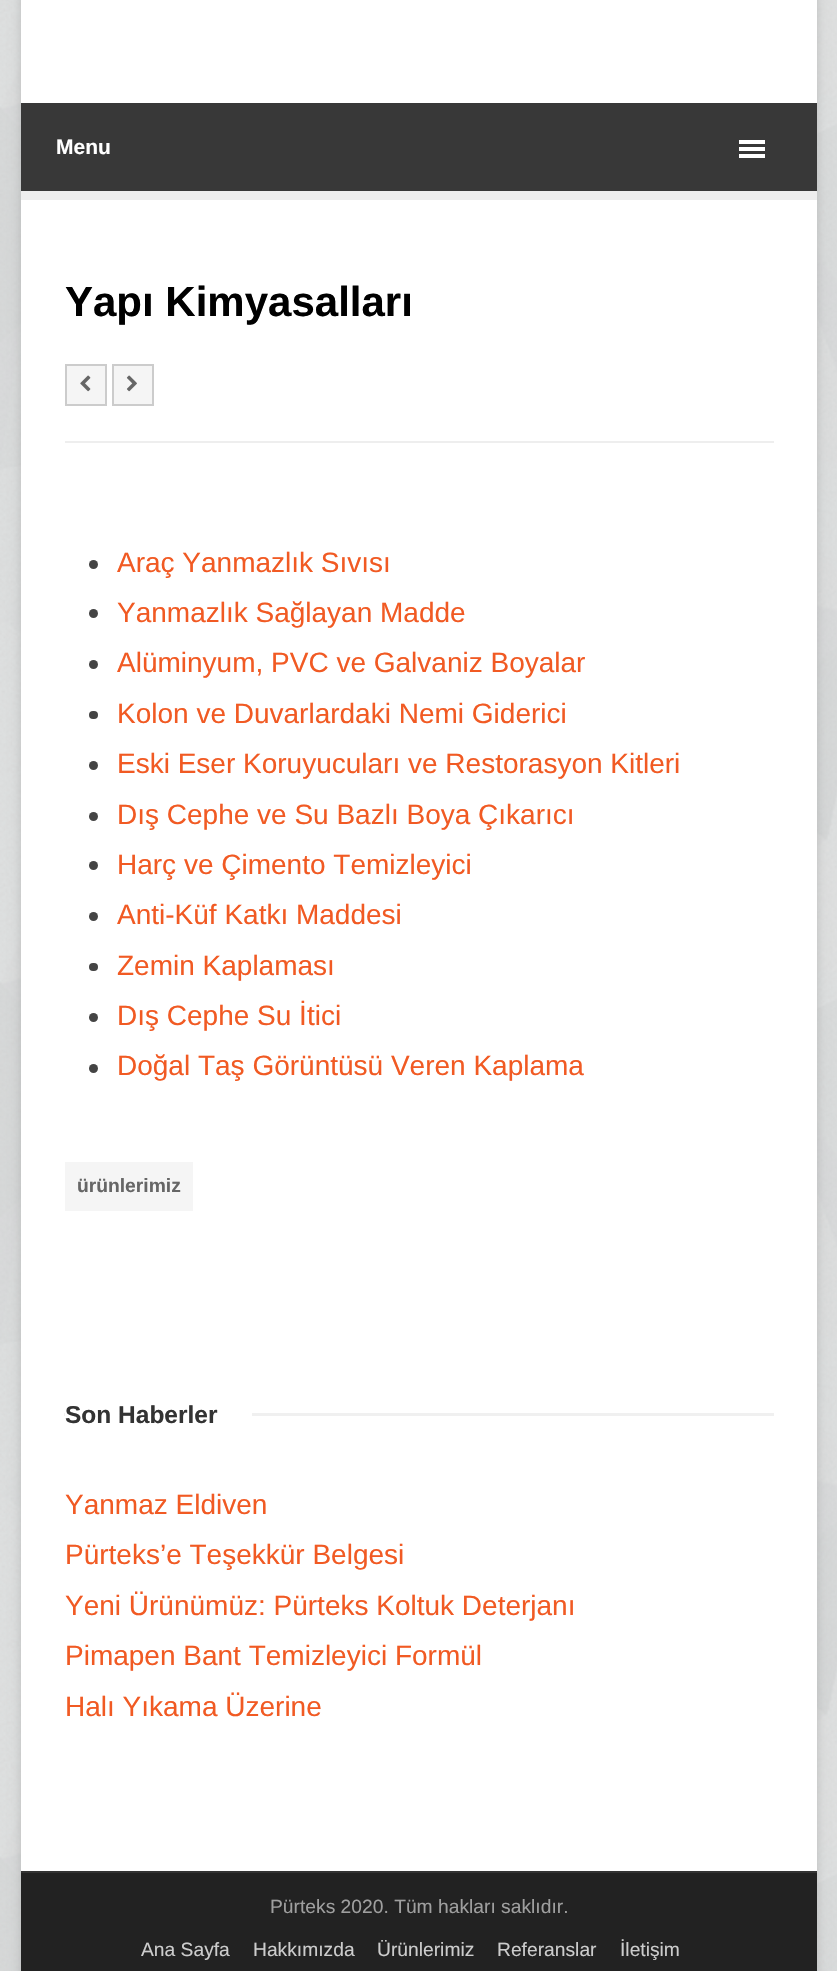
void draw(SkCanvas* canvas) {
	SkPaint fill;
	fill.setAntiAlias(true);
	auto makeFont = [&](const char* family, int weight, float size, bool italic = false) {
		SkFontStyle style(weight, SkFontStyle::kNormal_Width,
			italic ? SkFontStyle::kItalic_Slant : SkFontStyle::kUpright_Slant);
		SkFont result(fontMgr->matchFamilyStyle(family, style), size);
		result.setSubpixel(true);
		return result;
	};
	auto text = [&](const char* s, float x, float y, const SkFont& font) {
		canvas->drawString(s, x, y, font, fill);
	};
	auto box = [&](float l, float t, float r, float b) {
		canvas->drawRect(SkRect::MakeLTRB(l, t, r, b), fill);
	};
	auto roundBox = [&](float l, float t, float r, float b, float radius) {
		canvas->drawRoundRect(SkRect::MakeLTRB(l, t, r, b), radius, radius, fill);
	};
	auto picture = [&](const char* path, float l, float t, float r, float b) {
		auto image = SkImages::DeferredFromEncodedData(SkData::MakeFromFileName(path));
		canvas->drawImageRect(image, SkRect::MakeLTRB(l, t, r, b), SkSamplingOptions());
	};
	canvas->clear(0xFFFFFFFF);
	picture("image0.png", 0, 0, 837, 1971);
	fill.setColor(0x26000000);
	fill.setMaskFilter(SkMaskFilter::MakeBlur(kNormal_SkBlurStyle, 5));
	canvas->drawRect(SkRect::MakeLTRB(21, -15, 817, 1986), fill);
	fill.setMaskFilter(nullptr);
	fill.setColor(0xFFFFFFFF);
	box(21, 0, 817, 1871);
	fill.setColor(0xFF383838);
	box(21, 103, 817, 191);
	fill.setColor(0xFFEEEEEE);
	box(21, 191, 817, 200);
	fill.setColor(0xFFFFFFFF);
	box(739, 140, 765, 144);
	box(739, 147, 765, 151);
	box(739, 154, 765, 158);
	fill.setColor(0xFFEEEEEE);
	box(65, 441, 774, 443);
	fill.setColor(0xFFF5F5F5);
	canvas->drawRect(SkRect::MakeLTRB(66, 365, 106, 405), fill);
	fill.setStyle(SkPaint::kStroke_Style);
	fill.setStrokeWidth(2);
	fill.setColor(0xFFCCCCCC);
	canvas->drawRect(SkRect::MakeLTRB(66, 365, 106, 405), fill);
	picture("image1.png", 80, 375, 91, 392);
	fill.setStyle(SkPaint::kFill_Style);
	fill.setColor(0xFFF5F5F5);
	canvas->drawRect(SkRect::MakeLTRB(113, 365, 153, 405), fill);
	fill.setStyle(SkPaint::kStroke_Style);
	fill.setColor(0xFFCCCCCC);
	canvas->drawRect(SkRect::MakeLTRB(113, 365, 153, 405), fill);
	picture("image2.png", 126, 375, 137, 392);
	fill.setStyle(SkPaint::kFill_Style);
	fill.setColor(0xFF444444);
	canvas->drawCircle(93.5f, 564.5f, 4.5f, fill);
	canvas->drawCircle(93.5f, 613.5f, 4.5f, fill);
	canvas->drawCircle(93.5f, 664.5f, 4.5f, fill);
	roundBox(89, 711, 98, 719, 4);
	canvas->drawCircle(93.5f, 765.5f, 4.5f, fill);
	canvas->drawCircle(93.5f, 816.5f, 4.5f, fill);
	canvas->drawCircle(93.5f, 865.5f, 4.5f, fill);
	canvas->drawCircle(93.5f, 916.5f, 4.5f, fill);
	roundBox(89, 963, 98, 971, 4);
	canvas->drawCircle(93.5f, 1017.5f, 4.5f, fill);
	canvas->drawCircle(93.5f, 1068.5f, 4.5f, fill);
	fill.setColor(0xFFF5F5F5);
	box(65, 1162, 193, 1211);
	fill.setColor(0xFFF0F0F0);
	box(64, 1413, 774, 1416);
	fill.setColor(0xFFFFFFFF);
	box(65, 1413, 252, 1416);
	fill.setColor(0xFF222222);
	box(21, 1873, 817, 1971);
	fill.setColor(0xFF333333);
	box(21, 1871, 817, 1873);
	auto font1 = makeFont("Liberation Sans", 700, 21);
	fill.setColor(0xFFFFFFFF);
	text("Menu", 56, 154, font1);
	auto font2 = makeFont("Liberation Sans", 700, 42);
	fill.setColor(0xFF000000);
	text("Yapı Kimyasalları", 65, 316, font2);
	auto font3 = makeFont("Liberation Sans", 400, 28);
	fill.setColor(0xFFF15A23);
	text("Araç Yanmazlık Sıvısı", 117, 572, font3);
	text("Yanmazlık Sağlayan Madde", 117, 622, font3);
	text("Alüminyum, PVC ve Galvaniz Boyalar", 117, 672, font3);
	text("Kolon ve Duvarlardaki Nemi Giderici", 117, 723, font3);
	text("Eski Eser Koruyucuları ve Restorasyon Kitleri", 117, 773, font3);
	text("Dış Cephe ve Su Bazlı Boya Çıkarıcı", 117, 824, font3);
	text("Harç ve Çimento Temizleyici", 117, 874, font3);
	text("Anti-Küf Katkı Maddesi", 117, 924, font3);
	text("Zemin Kaplaması", 117, 975, font3);
	text("Dış Cephe Su İtici", 117, 1025, font3);
	text("Doğal Taş Görüntüsü Veren Kaplama", 117, 1075, font3);
	auto font4 = makeFont("Liberation Sans", 700, 19.25f);
	fill.setColor(0xFF666666);
	text("ürünlerimiz", 77, 1192, font4);
	auto font5 = makeFont("Liberation Sans", 700, 24.5f);
	fill.setColor(0xFF333333);
	text("Son Haberler", 65, 1423, font5);
	fill.setColor(0xFFF15A23);
	text("Yanmaz Eldiven", 65, 1514, font3);
	text("Pürteks’e Teşekkür Belgesi", 65, 1564, font3);
	text("Yeni Ürünümüz: Pürteks Koltuk Deterjanı", 65, 1615, font3);
	text("Pimapen Bant Temizleyici Formül", 65, 1665, font3);
	text("Halı Yıkama Üzerine", 65, 1716, font3);
	auto font6 = makeFont("Liberation Sans", 400, 19.25f);
	fill.setColor(0xFF9F9F9F);
	text("Pürteks 2020. Tüm hakları saklıdır.", 270, 1913, font6);
	fill.setColor(0xFFCCCCCC);
	text("Ana Sayfa", 141, 1956, font6);
	text("Hakkımızda", 253, 1956, font6);
	text("Ürünlerimiz", 377, 1956, font6);
	text("Referanslar", 497, 1956, font6);
	text("İletişim", 620, 1956, font6);
}
